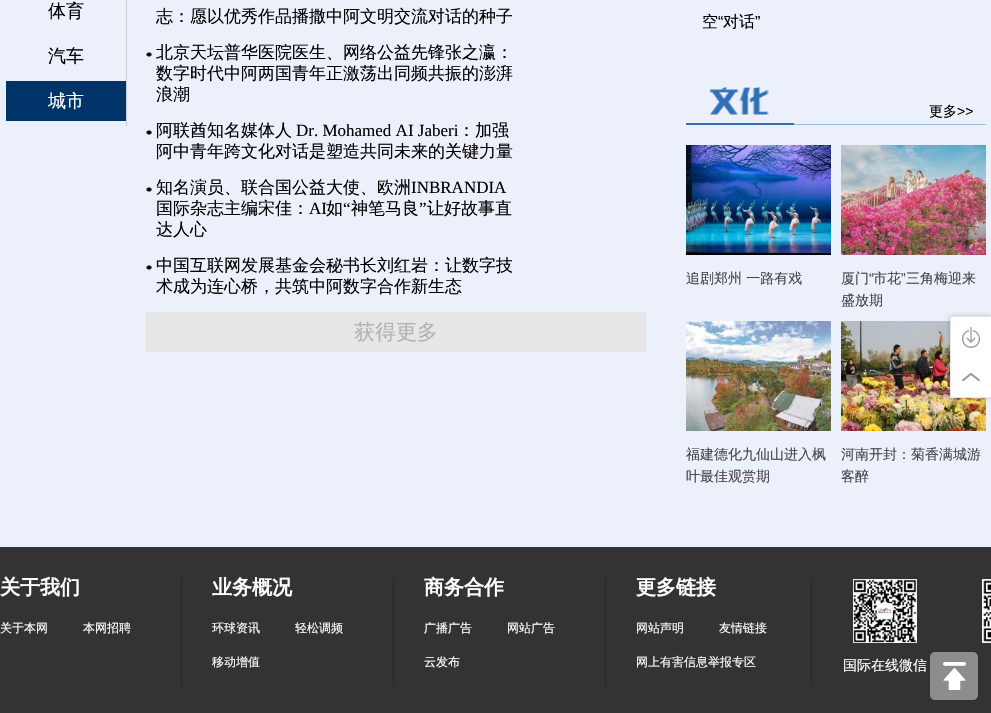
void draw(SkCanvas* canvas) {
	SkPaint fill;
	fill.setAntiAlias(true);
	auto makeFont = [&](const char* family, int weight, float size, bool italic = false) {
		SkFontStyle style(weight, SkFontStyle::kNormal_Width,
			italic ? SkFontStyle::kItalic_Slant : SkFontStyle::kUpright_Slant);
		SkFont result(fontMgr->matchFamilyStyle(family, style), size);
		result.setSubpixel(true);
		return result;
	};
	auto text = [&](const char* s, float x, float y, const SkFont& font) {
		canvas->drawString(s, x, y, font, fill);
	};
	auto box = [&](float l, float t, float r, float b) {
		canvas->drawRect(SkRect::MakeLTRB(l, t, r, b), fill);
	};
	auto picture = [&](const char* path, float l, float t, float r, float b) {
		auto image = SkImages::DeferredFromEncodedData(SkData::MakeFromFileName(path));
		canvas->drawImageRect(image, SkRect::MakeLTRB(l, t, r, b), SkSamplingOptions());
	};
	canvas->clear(0xFFECF0FB);
	fill.setColor(0xFFCCCCCC);
	box(126, 0, 127, 126);
	fill.setColor(0xFF003368);
	box(6, 81, 126, 121);
	picture("image0.png", 146, 52, 152, 57);
	picture("image0.png", 146, 130, 152, 135);
	picture("image0.png", 146, 187, 152, 192);
	picture("image0.png", 146, 265, 152, 270);
	fill.setColor(0xFFE6E6E6);
	box(146, 312, 646, 352);
	fill.setColor(0xFF9DC1E3);
	box(794, 124, 986, 125);
	picture("image1.png", 686, 87, 794, 125);
	picture("image2.png", 686, 145, 831, 255);
	picture("image3.png", 841, 145, 986, 255);
	picture("image4.png", 686, 321, 831, 431);
	picture("image5.png", 841, 321, 986, 431);
	fill.setColor(0x33000000);
	fill.setMaskFilter(SkMaskFilter::MakeBlur(kNormal_SkBlurStyle, 2.5f));
	canvas->drawRect(SkRect::MakeLTRB(950, 316, 991, 398), fill);
	fill.setMaskFilter(nullptr);
	fill.setColor(0xFFFFFFFF);
	box(951, 317, 991, 397);
	fill.setColor(0xFFE4E4E4);
	box(950, 316, 991, 317);
	box(950, 397, 991, 398);
	box(950, 316, 951, 398);
	picture("image6.png", 962, 327, 980, 348);
	picture("image7.png", 962, 373, 980, 381);
	fill.setColor(0xFF333333);
	box(0, 547, 991, 713);
	fill.setColor(0xFF272727);
	box(181, 577, 182, 687);
	box(393, 577, 394, 687);
	box(605, 577, 606, 687);
	box(811, 577, 812, 687);
	picture("image8.png", 982, 579, 991, 643);
	picture("image9.png", 853, 579, 917, 643);
	picture("image10.png", 930, 652, 978, 700);
	auto font1 = makeFont("WenQuanYi Zen Hei", 500, 18);
	fill.setColor(0xFF000000);
	text("体育", 48, 17, font1);
	text("汽车", 48, 62, font1);
	fill.setColor(0xFFFFFFFF);
	text("城市", 48, 107, font1);
	auto font2 = makeFont("WenQuanYi Zen Hei", 500, 17);
	fill.setColor(0xFF000000);
	text("志：愿以优秀作品播撒中阿文明交流对话的种子", 156, 22, font2);
	text("北京天坛普华医院医生、网络公益先锋张之瀛：", 156, 58, font2);
	text("数字时代中阿两国青年正激荡出同频共振的澎湃", 156, 79, font2);
	text("浪潮", 156, 100, font2);
	text("阿联酋知名媒体人", 156, 136, font2);
	auto font3 = makeFont("Liberation Serif", 400, 17);
	text("Dr. Mohamed AI Jaberi", 296, 136, font3);
	text("：加强", 458, 136, font2);
	text("阿中青年跨文化对话是塑造共同未来的关键力量", 156, 157, font2);
	text("知名演员、联合国公益大使、欧洲", 156, 193, font2);
	text("INBRANDIA", 411, 193, font3);
	text("国际杂志主编宋佳：", 156, 214, font2);
	text("AI", 309, 214, font3);
	text("如", 326, 214, font2);
	text("“", 343, 214, font3);
	text("神笔马良", 351, 214, font2);
	text("”", 419, 214, font3);
	text("让好故事直", 427, 214, font2);
	text("达人心", 156, 235, font2);
	text("中国互联网发展基金会秘书长刘红岩：让数字技", 156, 271, font2);
	text("术成为连心桥，共筑中阿数字合作新生态", 156, 292, font2);
	auto font4 = makeFont("WenQuanYi Zen Hei", 500, 21);
	fill.setColor(0xFFB2B2B2);
	text("获得更多", 354, 339, font4);
	auto font5 = makeFont("WenQuanYi Zen Hei", 500, 16);
	fill.setColor(0xFF000000);
	text("空", 702, 27, font5);
	auto font6 = makeFont("Liberation Sans", 400, 16);
	text("“", 718, 27, font6);
	text("对话", 723, 27, font5);
	text("”", 755, 27, font6);
	auto font7 = makeFont("WenQuanYi Zen Hei", 500, 14);
	text("更多", 929, 116, font7);
	auto font8 = makeFont("Liberation Sans", 400, 14);
	text(">>", 957, 116, font8);
	fill.setColor(0xFF444444);
	text("追剧郑州 一路有戏", 686, 283, font7);
	text("厦门", 841, 283, font7);
	text("“", 869, 283, font8);
	text("市花", 873, 283, font7);
	text("”", 901, 283, font8);
	text("三角梅迎来", 906, 283, font7);
	text("盛放期", 841, 305, font7);
	text("福建德化九仙山进入枫", 686, 459, font7);
	text("叶最佳观赏期", 686, 481, font7);
	text("河南开封：菊香满城游", 841, 459, font7);
	text("客醉", 841, 481, font7);
	auto font9 = makeFont("WenQuanYi Zen Hei", 700, 20);
	fill.setColor(0xFFFFFFFF);
	text("关于我们", 0, 594, font9);
	auto font10 = makeFont("WenQuanYi Zen Hei", 500, 12);
	text("关于本网", 0, 632, font10);
	text("本网招聘", 83, 632, font10);
	text("业务概况", 212, 594, font9);
	text("环球资讯", 212, 632, font10);
	text("轻松调频", 295, 632, font10);
	text("移动增值", 212, 666, font10);
	text("商务合作", 424, 594, font9);
	text("广播广告", 424, 632, font10);
	text("网站广告", 507, 632, font10);
	text("云发布", 424, 666, font10);
	text("更多链接", 636, 594, font9);
	text("网站声明", 636, 632, font10);
	text("友情链接", 719, 632, font10);
	text("网上有害信息举报专区", 636, 666, font10);
	text("国际在线微信", 843, 670, font7);
}
